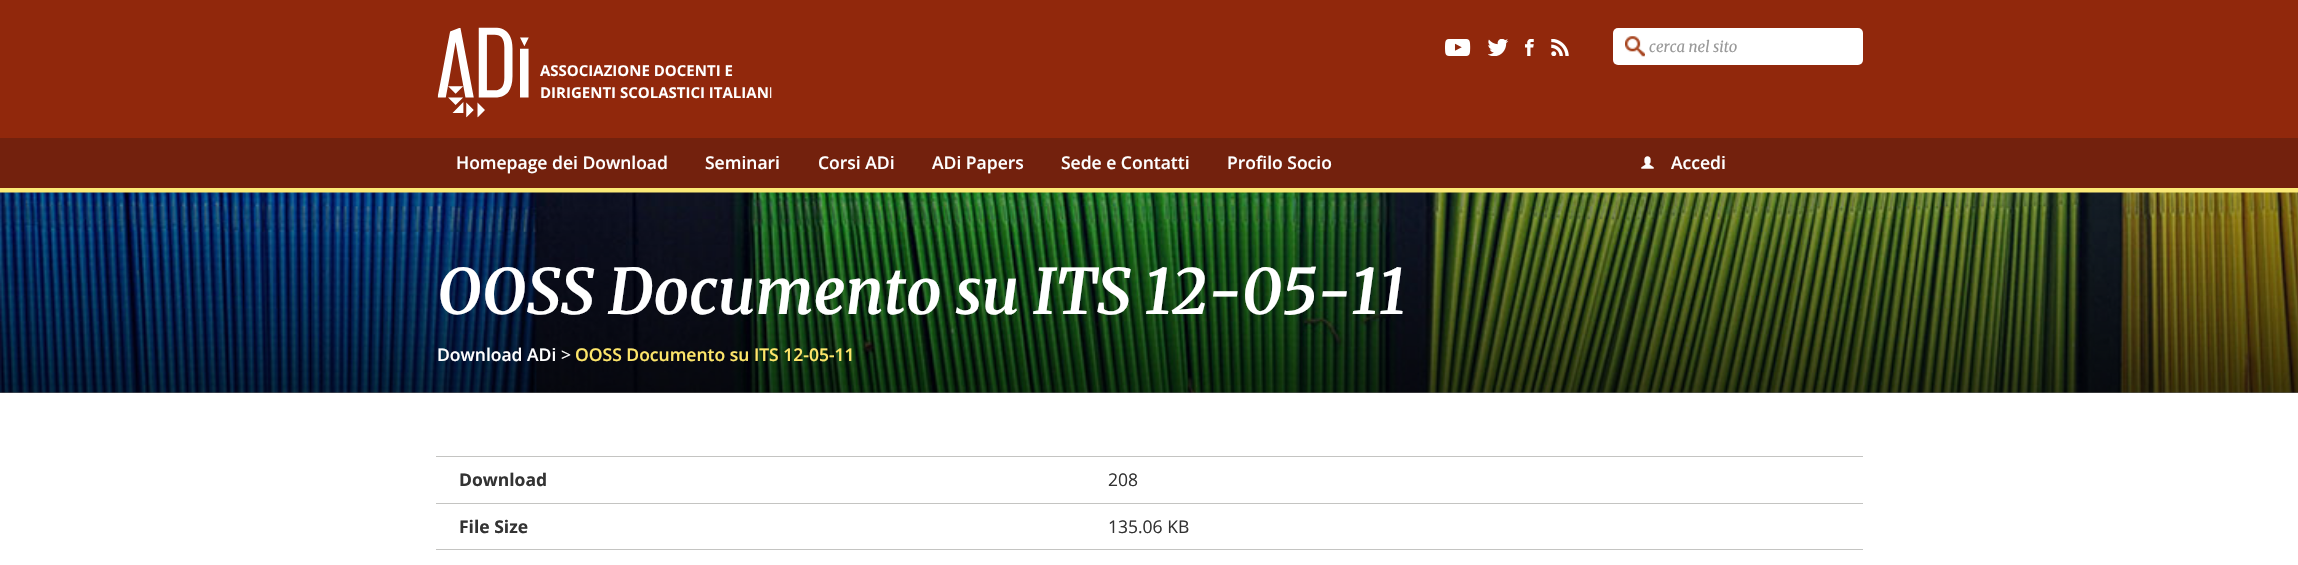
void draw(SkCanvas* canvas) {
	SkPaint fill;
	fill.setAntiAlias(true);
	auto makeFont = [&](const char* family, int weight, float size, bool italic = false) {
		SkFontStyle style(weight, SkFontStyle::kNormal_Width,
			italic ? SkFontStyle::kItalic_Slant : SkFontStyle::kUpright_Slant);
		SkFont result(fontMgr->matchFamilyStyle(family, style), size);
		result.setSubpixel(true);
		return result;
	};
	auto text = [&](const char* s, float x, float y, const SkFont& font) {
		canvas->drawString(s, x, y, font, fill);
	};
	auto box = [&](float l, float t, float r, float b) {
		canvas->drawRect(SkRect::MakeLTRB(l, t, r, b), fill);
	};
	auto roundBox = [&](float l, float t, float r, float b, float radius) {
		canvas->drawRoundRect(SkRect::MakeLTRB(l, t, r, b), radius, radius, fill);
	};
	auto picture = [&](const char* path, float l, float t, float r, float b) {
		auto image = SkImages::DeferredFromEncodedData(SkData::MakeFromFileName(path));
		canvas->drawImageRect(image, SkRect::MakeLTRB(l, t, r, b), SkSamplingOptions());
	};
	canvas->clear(0xFFFFFFFF);
	fill.setColor(0xFF91280C);
	box(0, 0, 2298, 138);
	picture("image0.png", 437, 27, 772, 118);
	picture("image1.png", 1445, 39, 1471, 56);
	picture("image2.png", 1488, 39, 1509, 56);
	picture("image3.png", 1525, 39, 1534, 56);
	picture("image4.png", 1551, 39, 1569, 56);
	fill.setColor(0xFFFFFFFF);
	roundBox(1613, 28, 1863, 65, 5);
	picture("image5.png", 1625, 36, 1645, 57);
	fill.setColor(0xFF73210D);
	box(0, 138, 2298, 188);
	fill.setColor(0xFFFBE976);
	box(0, 188, 2298, 193);
	picture("image6.png", 1641, 156, 1654, 169);
	picture("image7.png", 0, 192, 2298, 393);
	{
		const SkColor colors[] = {0x99000000, 0x4D000000, 0x00000000};
		const float stops[] = {0, 0.5f, 1};
		const SkPoint ends[] = {{1149, 393}, {1149, 193}};
		fill.setShader(SkGradientShader::MakeLinear(ends, colors, stops, 3, SkTileMode::kClamp));
		fill.setAlpha(255);
	}
	box(0, 200, 2298, 393);
	fill.setShader(nullptr);
	fill.setColor(0xFFC4C4C2);
	box(436, 456, 1863, 457);
	box(436, 503, 1863, 504);
	box(436, 549, 1863, 550);
	auto font1 = makeFont("Merriweather", 400, 15, true);
	fill.setColor(0xFF999999);
	text("cerca nel sito", 1649, 52, font1);
	auto font2 = makeFont("Open Sans", 600, 17.5f);
	fill.setColor(0xFFFFFFFF);
	text("Homepage dei Download", 456, 169, font2);
	text("Seminari", 705, 169, font2);
	text("Corsi ADi", 818, 169, font2);
	text("ADi Papers", 932, 169, font2);
	text("Sede e Contatti", 1061, 169, font2);
	text("Profilo Socio", 1227, 169, font2);
	text("Accedi", 1671, 169, font2);
	auto font3 = makeFont("Merriweather", 600, 62.5f, true);
	text("OOSS Documento su ITS 12-05-11", 437, 314, font3);
	text("Download ADi", 437, 361, font2);
	auto font4 = makeFont("Open Sans", 400, 17.5f);
	text(">", 561, 361, font4);
	fill.setColor(0xFFFEE66A);
	text("OOSS Documento su ITS 12-05-11", 575, 361, font2);
	auto font5 = makeFont("Open Sans", 700, 17.5f);
	fill.setColor(0xFF333333);
	text("Download", 459, 486, font5);
	text("208", 1108, 486, font4);
	text("File Size", 459, 533, font5);
	text("135.06 KB", 1108, 533, font4);
}
